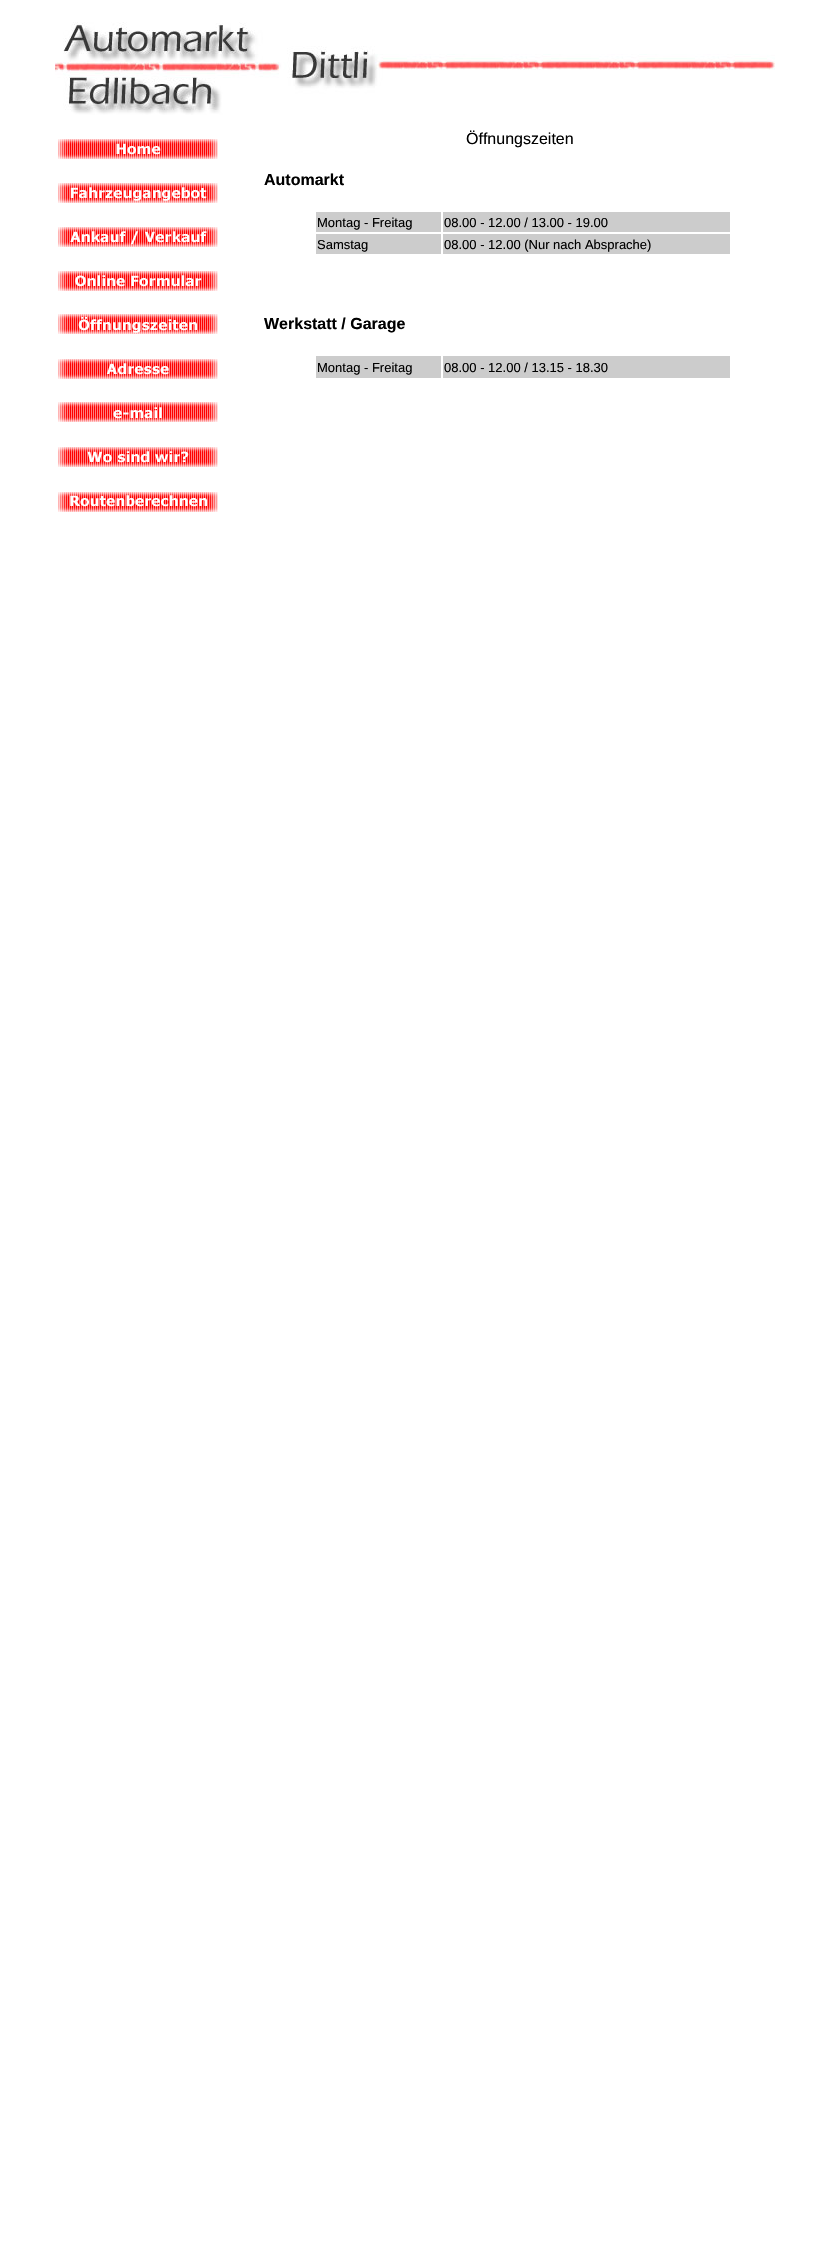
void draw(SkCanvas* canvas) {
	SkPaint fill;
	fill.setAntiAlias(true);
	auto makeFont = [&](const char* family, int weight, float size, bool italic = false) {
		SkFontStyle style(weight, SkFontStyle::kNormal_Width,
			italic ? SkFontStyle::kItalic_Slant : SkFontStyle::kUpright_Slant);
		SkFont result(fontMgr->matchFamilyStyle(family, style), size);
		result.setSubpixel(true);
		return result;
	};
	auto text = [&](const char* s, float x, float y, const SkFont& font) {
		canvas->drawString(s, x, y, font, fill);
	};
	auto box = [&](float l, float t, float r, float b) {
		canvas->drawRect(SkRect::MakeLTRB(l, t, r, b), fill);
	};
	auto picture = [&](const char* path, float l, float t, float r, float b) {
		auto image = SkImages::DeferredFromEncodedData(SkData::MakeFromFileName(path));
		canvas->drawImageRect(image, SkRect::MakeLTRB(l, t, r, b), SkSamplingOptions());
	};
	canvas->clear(0xFFFFFFFF);
	picture("image0.png", 55, 22, 775, 115);
	picture("image1.png", 58, 139, 218, 159);
	picture("image2.png", 58, 183, 218, 203);
	picture("image3.png", 58, 227, 218, 247);
	picture("image4.png", 58, 271, 218, 291);
	picture("image5.png", 58, 314, 218, 334);
	picture("image6.png", 58, 359, 218, 379);
	picture("image7.png", 58, 402, 218, 422);
	picture("image8.png", 58, 447, 218, 467);
	picture("image9.png", 58, 492, 218, 512);
	fill.setColor(0xFFCCCCCC);
	box(316, 212, 441, 232);
	box(443, 212, 730, 232);
	box(316, 234, 441, 254);
	box(443, 234, 730, 254);
	box(316, 356, 441, 378);
	box(443, 356, 730, 378);
	auto font1 = makeFont("Liberation Sans", 400, 16);
	fill.setColor(0xFF000000);
	text("Öffnungszeiten", 466, 144, font1);
	auto font2 = makeFont("Liberation Sans", 700, 16);
	text("Automarkt", 264, 185, font2);
	auto font3 = makeFont("Liberation Sans", 400, 13);
	text("Montag - Freitag", 317, 227, font3);
	text("08.00 - 12.00 / 13.00 - 19.00", 444, 227, font3);
	text("Samstag", 317, 249, font3);
	text("08.00 - 12.00 (Nur nach Absprache)", 444, 249, font3);
	text("Werkstatt / Garage", 264, 329, font2);
	text("Montag - Freitag", 317, 372, font3);
	text("08.00 - 12.00 / 13.15 - 18.30", 444, 372, font3);
}
